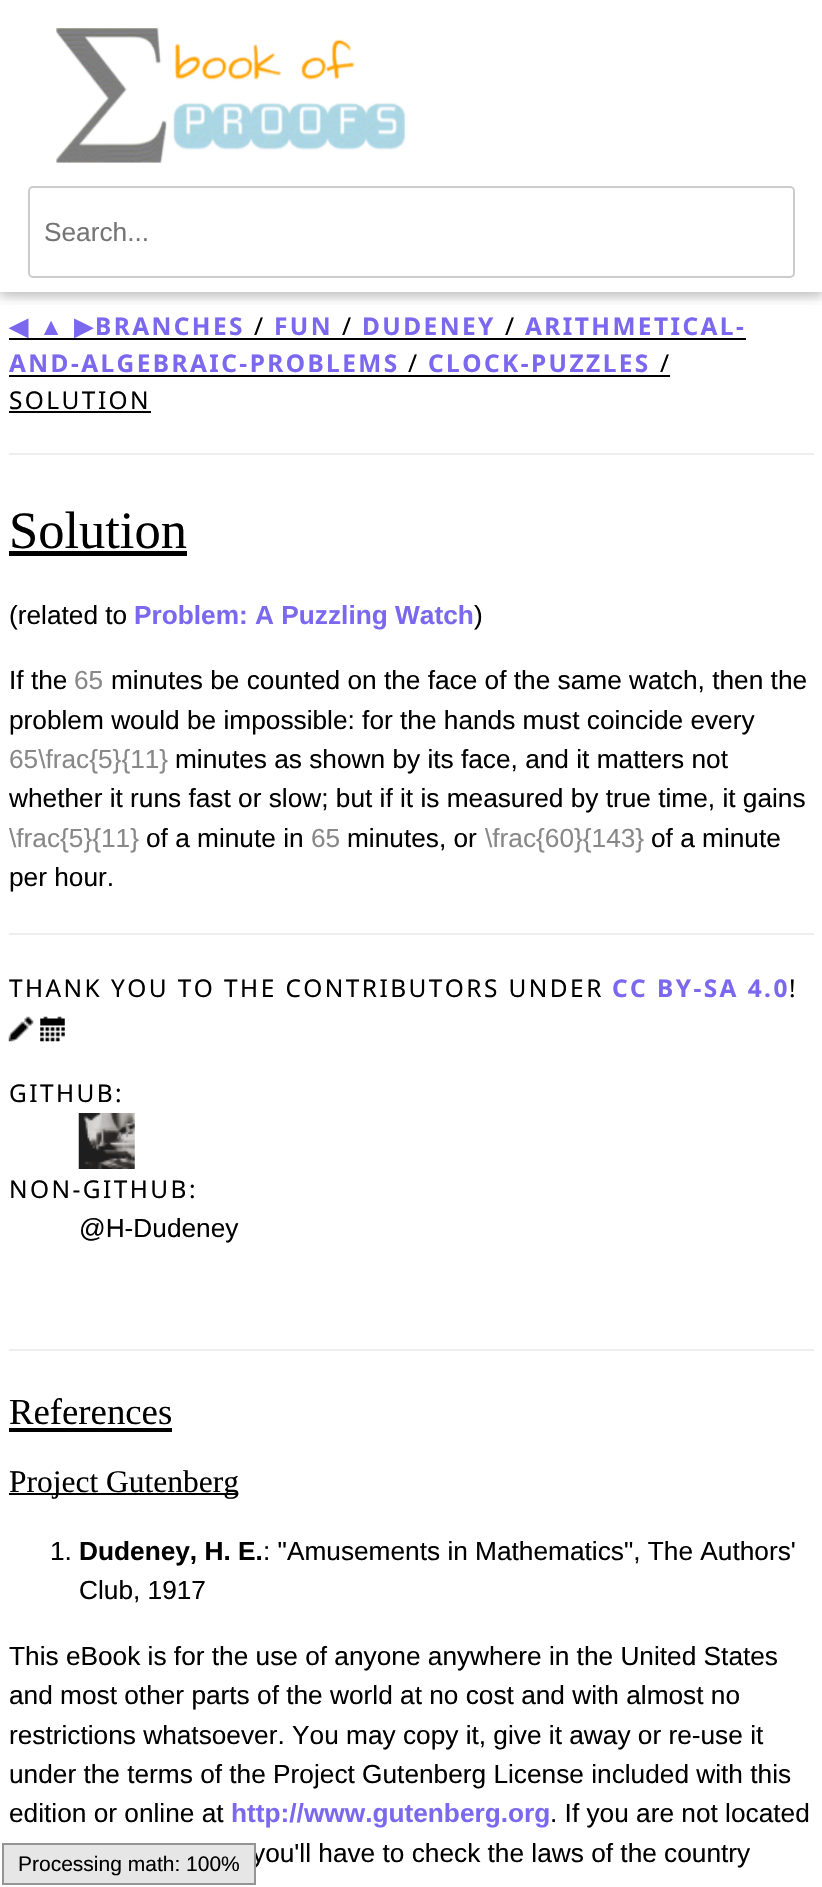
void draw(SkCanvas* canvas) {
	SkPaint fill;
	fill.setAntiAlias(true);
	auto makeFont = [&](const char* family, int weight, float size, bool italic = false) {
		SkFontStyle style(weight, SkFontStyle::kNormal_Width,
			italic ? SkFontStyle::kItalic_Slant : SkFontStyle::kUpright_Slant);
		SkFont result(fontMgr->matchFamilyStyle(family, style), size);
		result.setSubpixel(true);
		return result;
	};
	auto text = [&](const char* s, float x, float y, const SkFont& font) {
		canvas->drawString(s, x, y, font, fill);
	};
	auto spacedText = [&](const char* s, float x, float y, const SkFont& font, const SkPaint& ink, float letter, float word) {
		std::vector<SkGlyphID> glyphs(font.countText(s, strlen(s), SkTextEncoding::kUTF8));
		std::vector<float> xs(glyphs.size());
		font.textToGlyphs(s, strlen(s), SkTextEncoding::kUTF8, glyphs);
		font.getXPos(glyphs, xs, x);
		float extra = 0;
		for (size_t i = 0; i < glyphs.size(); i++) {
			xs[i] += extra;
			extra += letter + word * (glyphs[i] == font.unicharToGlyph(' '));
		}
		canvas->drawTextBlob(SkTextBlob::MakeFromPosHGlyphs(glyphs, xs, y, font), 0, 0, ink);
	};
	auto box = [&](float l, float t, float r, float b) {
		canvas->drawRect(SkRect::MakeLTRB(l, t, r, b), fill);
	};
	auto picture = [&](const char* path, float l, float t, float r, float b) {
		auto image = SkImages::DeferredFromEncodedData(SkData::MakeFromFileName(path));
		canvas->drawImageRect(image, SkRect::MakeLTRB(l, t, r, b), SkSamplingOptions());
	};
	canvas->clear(0xFFFFFFFF);
	canvas->save();
	canvas->clipRect(SkRect::MakeLTRB(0, 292, 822, 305));
	fill.setColor(0x1F000000);
	fill.setMaskFilter(SkMaskFilter::MakeBlur(kNormal_SkBlurStyle, 9));
	canvas->drawRect(SkRect::MakeLTRB(0, 4, 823, 296), fill);
	fill.setMaskFilter(nullptr);
	canvas->restore();
	canvas->save();
	canvas->clipRect(SkRect::MakeLTRB(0, 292, 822, 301));
	fill.setColor(0x29000000);
	fill.setMaskFilter(SkMaskFilter::MakeBlur(kNormal_SkBlurStyle, 4.5f));
	canvas->drawRect(SkRect::MakeLTRB(0, 4, 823, 296), fill);
	fill.setMaskFilter(nullptr);
	canvas->restore();
	picture("image0.png", 56, 28, 406, 163);
	fill.setStyle(SkPaint::kStroke_Style);
	fill.setStrokeWidth(2);
	fill.setColor(0xFFCCCCCC);
	canvas->drawRoundRect(SkRect::MakeLTRB(29, 187, 794, 277), 4, 4, fill);
	fill.setStyle(SkPaint::kFill_Style);
	fill.setColor(0xFF000000);
	box(9, 338, 746, 340);
	box(9, 375, 670, 377);
	box(9, 411, 151, 413);
	fill.setColor(0xFFEEEEEE);
	box(9, 453, 814, 455);
	fill.setColor(0xFF000000);
	box(9, 551, 187, 556);
	fill.setColor(0xFFEEEEEE);
	box(9, 933, 814, 935);
	picture("image1.png", 8, 1016, 34, 1042);
	picture("image2.png", 40, 1016, 65, 1042);
	picture("image3.png", 78, 1113, 135, 1169);
	box(9, 1349, 814, 1351);
	fill.setColor(0xFF000000);
	box(9, 1428, 172, 1432);
	box(9, 1493, 238, 1495);
	auto font1 = makeFont("Liberation Sans", 400, 26.25f);
	fill.setColor(0xFF757575);
	text("Search...", 44, 241, font1);
	auto font2 = makeFont("DejaVu Sans", 700, 24.4f);
	fill.setColor(0xFF7B68EE);
	spacedText("◀", 9, 335, font2, fill, 2.45f, 0);
	auto font3 = makeFont("Liberation Sans", 700, 24.4f);
	spacedText("▲", 39, 335, font3, fill, 2.45f, 0);
	spacedText("▶", 74, 335, font2, fill, 2.45f, 0);
	auto font4 = makeFont("Noto Sans", 700, 24.4f);
	spacedText("BRANCHES", 95, 335, font4, fill, 2.45f, 0);
	auto font5 = makeFont("Noto Sans", 400, 24.4f);
	fill.setColor(0xFF000000);
	spacedText("/", 254, 335, font5, fill, 2.45f, 0);
	fill.setColor(0xFF7B68EE);
	spacedText("FUN", 274, 335, font4, fill, 2.45f, 0);
	fill.setColor(0xFF000000);
	spacedText("/", 342, 335, font5, fill, 2.45f, 0);
	fill.setColor(0xFF7B68EE);
	spacedText("DUDENEY", 362, 335, font4, fill, 2.45f, 0);
	fill.setColor(0xFF000000);
	spacedText("/", 505, 335, font5, fill, 2.45f, 0);
	fill.setColor(0xFF7B68EE);
	spacedText("ARITHMETICAL-", 525, 335, font4, fill, 2.45f, 0);
	spacedText("AND-ALGEBRAIC-PROBLEMS", 9, 372, font4, fill, 2.45f, 0);
	fill.setColor(0xFF000000);
	spacedText("/", 408, 372, font5, fill, 2.45f, 0);
	fill.setColor(0xFF7B68EE);
	spacedText("CLOCK-PUZZLES", 428, 372, font4, fill, 2.45f, 0);
	fill.setColor(0xFF000000);
	spacedText("/", 660, 372, font5, fill, 2.45f, 0);
	spacedText("SOLUTION", 9, 409, font5, fill, 2.45f, 0);
	auto font6 = makeFont("Liberation Serif", 400, 52.5f);
	text("Solution", 9, 548, font6);
	text("(related to", 9, 624, font1);
	auto font7 = makeFont("Liberation Sans", 700, 26.25f);
	fill.setColor(0xFF7B68EE);
	text("Problem: A Puzzling Watch", 134, 624, font7);
	fill.setColor(0xFF000000);
	text(")", 474, 624, font1);
	text("If the", 9, 689, font1);
	fill.setColor(0xFF888888);
	text("65", 74, 689, font1);
	fill.setColor(0xFF000000);
	text("minutes be counted on the face of the same watch, then the", 111, 689, font1);
	text("problem would be impossible: for the hands must coincide every", 9, 729, font1);
	fill.setColor(0xFF888888);
	text("65\\frac{5}{11}", 9, 768, font1);
	fill.setColor(0xFF000000);
	text("minutes as shown by its face, and it matters not", 175, 768, font1);
	text("whether it runs fast or slow; but if it is measured by true time, it gains", 9, 807, font1);
	fill.setColor(0xFF888888);
	text("\\frac{5}{11}", 9, 847, font1);
	fill.setColor(0xFF000000);
	text("of a minute in", 146, 847, font1);
	fill.setColor(0xFF888888);
	text("65", 311, 847, font1);
	fill.setColor(0xFF000000);
	text("minutes, or", 347, 847, font1);
	fill.setColor(0xFF888888);
	text("\\frac{60}{143}", 485, 847, font1);
	fill.setColor(0xFF000000);
	text("of a minute", 651, 847, font1);
	text("per hour.", 9, 886, font1);
	spacedText("THANK YOU TO THE CONTRIBUTORS UNDER", 9, 997, font5, fill, 2.45f, 0);
	fill.setColor(0xFF7B68EE);
	spacedText("CC BY-SA 4.0", 612, 997, font4, fill, 2.45f, 0);
	fill.setColor(0xFF000000);
	spacedText("!", 789, 997, font5, fill, 2.45f, 0);
	spacedText("GITHUB:", 9, 1102, font5, fill, 2.45f, 0);
	spacedText("NON-GITHUB:", 9, 1198, font5, fill, 2.45f, 0);
	text("@H-Dudeney", 79, 1237, font1);
	auto font8 = makeFont("Liberation Serif", 400, 36.75f);
	text("References", 9, 1424, font8);
	auto font9 = makeFont("Liberation Serif", 400, 31.5f);
	text("Project Gutenberg", 9, 1492, font9);
	text("1.", 50, 1560, font1);
	text("Dudeney, H. E.", 79, 1560, font7);
	text(": \"Amusements in Mathematics\", The Authors'", 263, 1560, font1);
	text("Club, 1917", 79, 1599, font1);
	text("This eBook is for the use of anyone anywhere in the United States", 9, 1665, font1);
	text("and most other parts of the world at no cost and with almost no", 9, 1704, font1);
	text("restrictions whatsoever. You may copy it, give it away or re-use it", 9, 1744, font1);
	text("under the terms of the Project Gutenberg License included with this", 9, 1783, font1);
	text("edition or online at", 9, 1822, font1);
	fill.setColor(0xFF7B68EE);
	text("http://www.gutenberg.org", 231, 1822, font7);
	fill.setColor(0xFF000000);
	text(". If you are not located", 550, 1822, font1);
	text("you'll have to check the laws of the country", 252, 1862, font1);
	fill.setColor(0xFFE6E6E6);
	canvas->drawRect(SkRect::MakeLTRB(3, 1844, 255, 1884), fill);
	fill.setStyle(SkPaint::kStroke_Style);
	fill.setColor(0xFF959595);
	canvas->drawRect(SkRect::MakeLTRB(3, 1844, 255, 1884), fill);
	auto font10 = makeFont("Liberation Sans", 400, 21);
	fill.setStyle(SkPaint::kFill_Style);
	fill.setColor(0xFF000000);
	text("Processing math: 100%", 18, 1871, font10);
}
